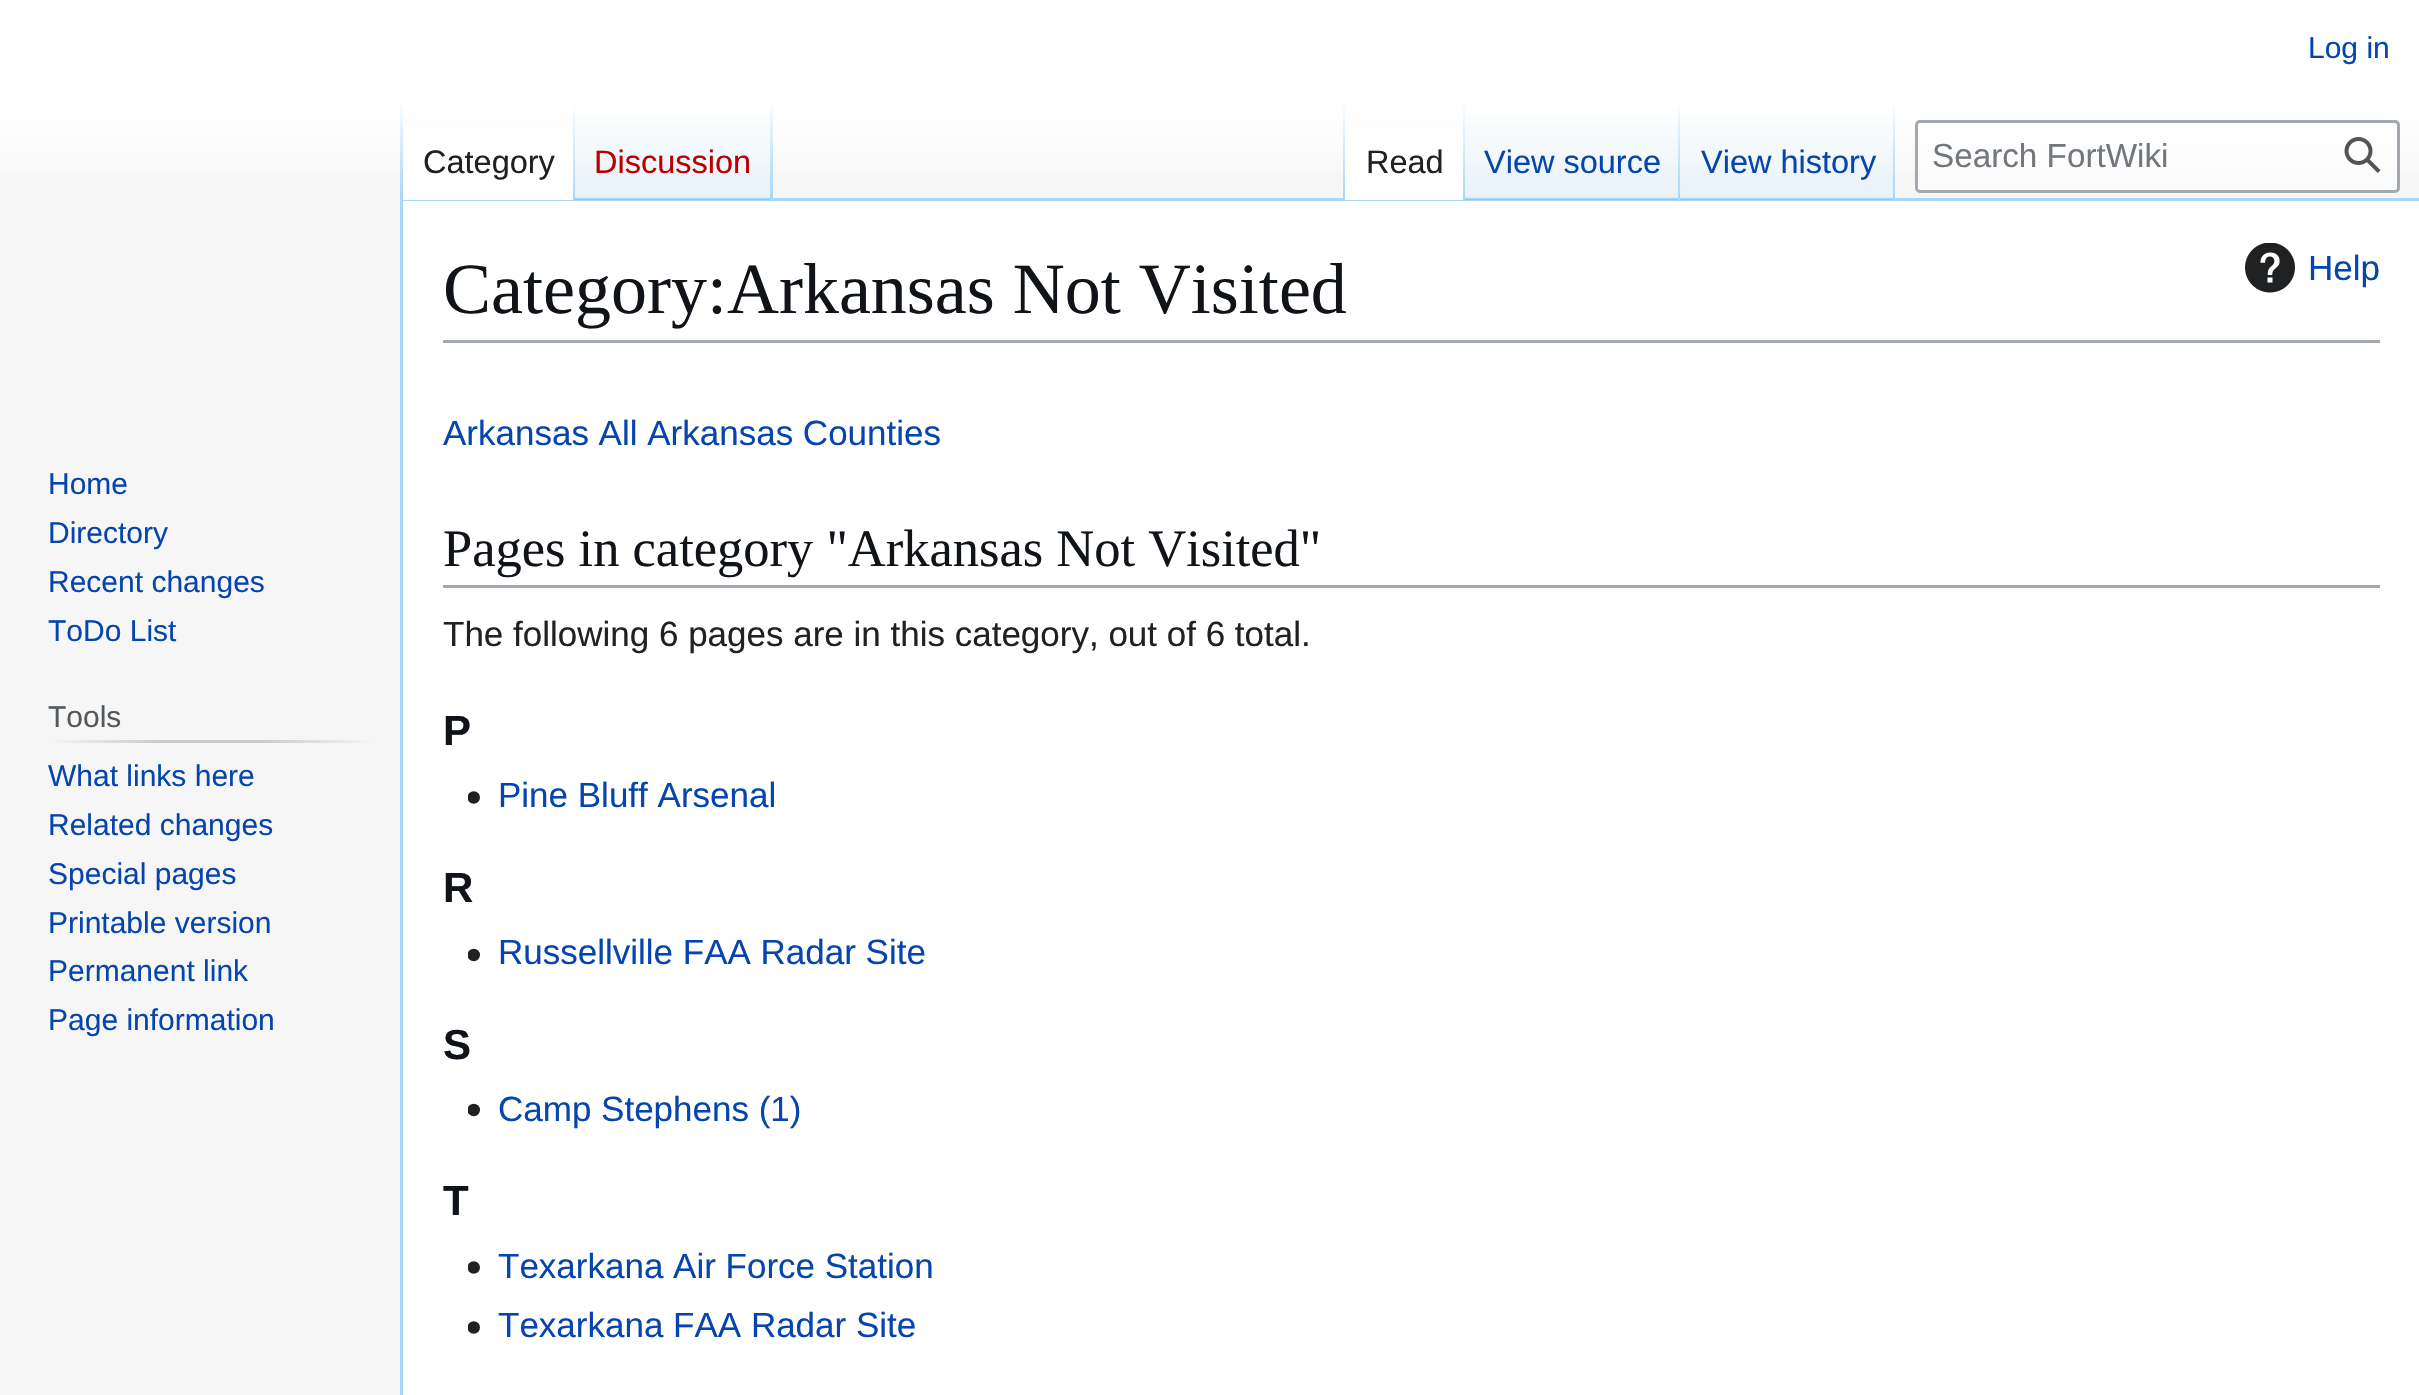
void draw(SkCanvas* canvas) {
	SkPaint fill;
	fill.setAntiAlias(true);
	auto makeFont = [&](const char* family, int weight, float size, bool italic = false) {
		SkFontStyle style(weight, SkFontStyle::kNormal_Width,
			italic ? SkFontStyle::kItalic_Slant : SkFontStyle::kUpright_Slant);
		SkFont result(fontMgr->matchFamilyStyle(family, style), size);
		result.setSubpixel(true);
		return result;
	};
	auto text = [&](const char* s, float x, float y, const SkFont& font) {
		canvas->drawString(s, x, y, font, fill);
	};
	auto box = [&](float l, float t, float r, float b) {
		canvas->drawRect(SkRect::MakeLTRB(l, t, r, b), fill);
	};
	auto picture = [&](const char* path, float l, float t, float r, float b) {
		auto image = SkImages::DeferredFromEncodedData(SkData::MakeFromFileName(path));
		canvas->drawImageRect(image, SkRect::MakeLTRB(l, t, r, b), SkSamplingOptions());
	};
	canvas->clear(0xFFF6F6F6);
	{
		const SkColor colors[] = {0xFFFFFFFF, 0xFFF6F6F6};
		const float stops[] = {0.5f, 1};
		const SkPoint ends[] = {{1210, 0}, {1210, 200}};
		fill.setShader(SkGradientShader::MakeLinear(ends, colors, stops, 2, SkTileMode::kClamp));
		fill.setAlpha(255);
	}
	box(0, 0, 2419, 172);
	fill.setShader(nullptr);
	fill.setColor(0xFFA7D7F9);
	box(400, 198, 2419, 201);
	box(400, 198, 403, 1395);
	{
		const SkColor colors[] = {0x00A7D7F9, 0xFFA7D7F9};
		const float stops[] = {0, 1};
		const SkPoint ends[] = {{401, 100}, {401, 200}};
		fill.setShader(SkGradientShader::MakeLinear(ends, colors, stops, 2, SkTileMode::kClamp));
		fill.setAlpha(255);
	}
	box(400, 100, 403, 200);
	fill.setShader(nullptr);
	fill.setColor(0xFFFFFFFF);
	box(403, 128, 573, 200);
	{
		const SkColor colors[] = {0xFFFFFFFF, 0xFFA7D7F9};
		const float stops[] = {0, 1};
		const SkPoint ends[] = {{574, 100}, {574, 200}};
		fill.setShader(SkGradientShader::MakeLinear(ends, colors, stops, 2, SkTileMode::kClamp));
		fill.setAlpha(255);
	}
	box(573, 100, 575, 200);
	{
		const SkColor colors[] = {0xFF77C1F6, 0xFFE8F2F8, 0xFFFFFFFF};
		const float stops[] = {0, 0.03f, 1};
		const SkPoint ends[] = {{674, 200}, {674, 100}};
		fill.setShader(SkGradientShader::MakeLinear(ends, colors, stops, 3, SkTileMode::kClamp));
		fill.setAlpha(255);
	}
	box(575, 115, 773, 200);
	{
		const SkColor colors[] = {0x00A7D7F9, 0xFFA7D7F9};
		const float stops[] = {0, 1};
		const SkPoint ends[] = {{771, 100}, {771, 200}};
		fill.setShader(SkGradientShader::MakeLinear(ends, colors, stops, 2, SkTileMode::kClamp));
		fill.setAlpha(255);
	}
	box(770, 100, 773, 200);
	{
		const SkColor colors[] = {0x00A7D7F9, 0xFFA7D7F9};
		const float stops[] = {0, 1};
		const SkPoint ends[] = {{1344, 100}, {1344, 200}};
		fill.setShader(SkGradientShader::MakeLinear(ends, colors, stops, 2, SkTileMode::kClamp));
		fill.setAlpha(255);
	}
	box(1343, 100, 1345, 200);
	fill.setShader(nullptr);
	fill.setColor(0xFFFFFFFF);
	box(1345, 128, 1463, 200);
	{
		const SkColor colors[] = {0xFFFFFFFF, 0xFFA7D7F9};
		const float stops[] = {0, 1};
		const SkPoint ends[] = {{1464, 100}, {1464, 200}};
		fill.setShader(SkGradientShader::MakeLinear(ends, colors, stops, 2, SkTileMode::kClamp));
		fill.setAlpha(255);
	}
	box(1463, 100, 1465, 200);
	{
		const SkColor colors[] = {0xFF77C1F6, 0xFFE8F2F8, 0xFFFFFFFF};
		const float stops[] = {0, 0.03f, 1};
		const SkPoint ends[] = {{1573, 200}, {1573, 100}};
		fill.setShader(SkGradientShader::MakeLinear(ends, colors, stops, 3, SkTileMode::kClamp));
		fill.setAlpha(255);
	}
	box(1465, 115, 1680, 200);
	{
		const SkColor colors[] = {0x00A7D7F9, 0xFFA7D7F9};
		const float stops[] = {0, 1};
		const SkPoint ends[] = {{1679, 100}, {1679, 200}};
		fill.setShader(SkGradientShader::MakeLinear(ends, colors, stops, 2, SkTileMode::kClamp));
		fill.setAlpha(255);
	}
	box(1678, 100, 1680, 200);
	{
		const SkColor colors[] = {0xFF77C1F6, 0xFFE8F2F8, 0xFFFFFFFF};
		const float stops[] = {0, 0.03f, 1};
		const SkPoint ends[] = {{1788, 200}, {1788, 100}};
		fill.setShader(SkGradientShader::MakeLinear(ends, colors, stops, 3, SkTileMode::kClamp));
		fill.setAlpha(255);
	}
	box(1680, 115, 1895, 200);
	{
		const SkColor colors[] = {0x00A7D7F9, 0xFFA7D7F9};
		const float stops[] = {0, 1};
		const SkPoint ends[] = {{1894, 100}, {1894, 200}};
		fill.setShader(SkGradientShader::MakeLinear(ends, colors, stops, 2, SkTileMode::kClamp));
		fill.setAlpha(255);
	}
	box(1893, 100, 1895, 200);
	fill.setShader(nullptr);
	fill.setColor(0x80FFFFFF);
	canvas->drawRoundRect(SkRect::MakeLTRB(1916.5f, 121.5f, 2398.5f, 191.5f), 3.5f, 3.5f, fill);
	fill.setStyle(SkPaint::kStroke_Style);
	fill.setStrokeWidth(3);
	fill.setColor(0xFFA2A9B1);
	canvas->drawRoundRect(SkRect::MakeLTRB(1916.5f, 121.5f, 2398.5f, 191.5f), 3.5f, 3.5f, fill);
	picture("image0.png", 2344, 137, 2381, 173);
	fill.setStyle(SkPaint::kFill_Style);
	{
		const SkColor colors[] = {0xFFF6F6F6, 0xFFC8CCD1, 0xFFC8CCD1, 0xFFF6F6F6};
		const float stops[] = {0, 0.33f, 0.66f, 1};
		const SkPoint ends[] = {{48, 741}, {375, 741}};
		fill.setShader(SkGradientShader::MakeLinear(ends, colors, stops, 4, SkTileMode::kClamp));
		fill.setAlpha(255);
	}
	box(48, 740, 375, 743);
	fill.setShader(nullptr);
	fill.setColor(0xFFFFFFFF);
	box(403, 201, 2419, 1395);
	fill.setColor(0xFFA2A9B1);
	box(443, 340, 2380, 343);
	picture("image1.png", 2245, 243, 2295, 293);
	box(443, 585, 2380, 588);
	picture("image2.png", 468, 791, 480, 804);
	picture("image3.png", 468, 948, 480, 962);
	picture("image3.png", 468, 1103, 480, 1117);
	picture("image4.png", 468, 1261, 480, 1274);
	picture("image2.png", 468, 1321, 480, 1334);
	auto font1 = makeFont("Liberation Sans", 400, 30);
	fill.setColor(0xFF0645AD);
	text("Log in", 2308, 58, font1);
	auto font2 = makeFont("Liberation Sans", 400, 32.5f);
	fill.setColor(0xFF202122);
	text("Category", 423, 173, font2);
	fill.setColor(0xFFBA0000);
	text("Discussion", 594, 173, font2);
	fill.setColor(0xFF202122);
	text("Read", 1366, 173, font2);
	fill.setColor(0xFF0645AD);
	text("View source", 1484, 173, font2);
	text("View history", 1701, 173, font2);
	auto font3 = makeFont("Liberation Sans", 400, 33.25f);
	fill.setColor(0xFF72777D);
	text("Search FortWiki", 1932, 167, font3);
	fill.setColor(0xFF0645AD);
	text("Home", 48, 494, font1);
	text("Directory", 48, 543, font1);
	text("Recent changes", 48, 592, font1);
	text("ToDo List", 48, 641, font1);
	fill.setColor(0xFF54595D);
	text("Tools", 48, 727, font1);
	fill.setColor(0xFF0645AD);
	text("What links here", 48, 786, font1);
	text("Related changes", 48, 835, font1);
	text("Special pages", 48, 884, font1);
	text("Printable version", 48, 933, font1);
	text("Permanent link", 48, 981, font1);
	text("Page information", 48, 1030, font1);
	auto font4 = makeFont("Liberation Serif", 400, 72);
	fill.setColor(0xFF101418);
	text("Category:Arkansas Not Visited", 443, 313, font4);
	auto font5 = makeFont("Liberation Sans", 400, 35);
	fill.setColor(0xFF0645AD);
	text("Help", 2308, 280, font5);
	text("Arkansas All Arkansas Counties", 443, 445, font5);
	auto font6 = makeFont("Liberation Serif", 400, 52.5f);
	fill.setColor(0xFF101418);
	text("Pages in category \"Arkansas Not Visited\"", 443, 566, font6);
	fill.setColor(0xFF202122);
	text("The following 6 pages are in this category, out of 6 total.", 443, 646, font5);
	auto font7 = makeFont("Liberation Sans", 700, 42);
	fill.setColor(0xFF101418);
	text("P", 443, 745, font7);
	fill.setColor(0xFF0645AD);
	text("Pine Bluff Arsenal", 498, 807, font5);
	fill.setColor(0xFF101418);
	text("R", 443, 902, font7);
	fill.setColor(0xFF0645AD);
	text("Russellville FAA Radar Site", 498, 964, font5);
	fill.setColor(0xFF101418);
	text("S", 443, 1059, font7);
	fill.setColor(0xFF0645AD);
	text("Camp Stephens (1)", 498, 1121, font5);
	fill.setColor(0xFF101418);
	text("T", 443, 1215, font7);
	fill.setColor(0xFF0645AD);
	text("Texarkana Air Force Station", 498, 1278, font5);
	text("Texarkana FAA Radar Site", 498, 1337, font5);
}
